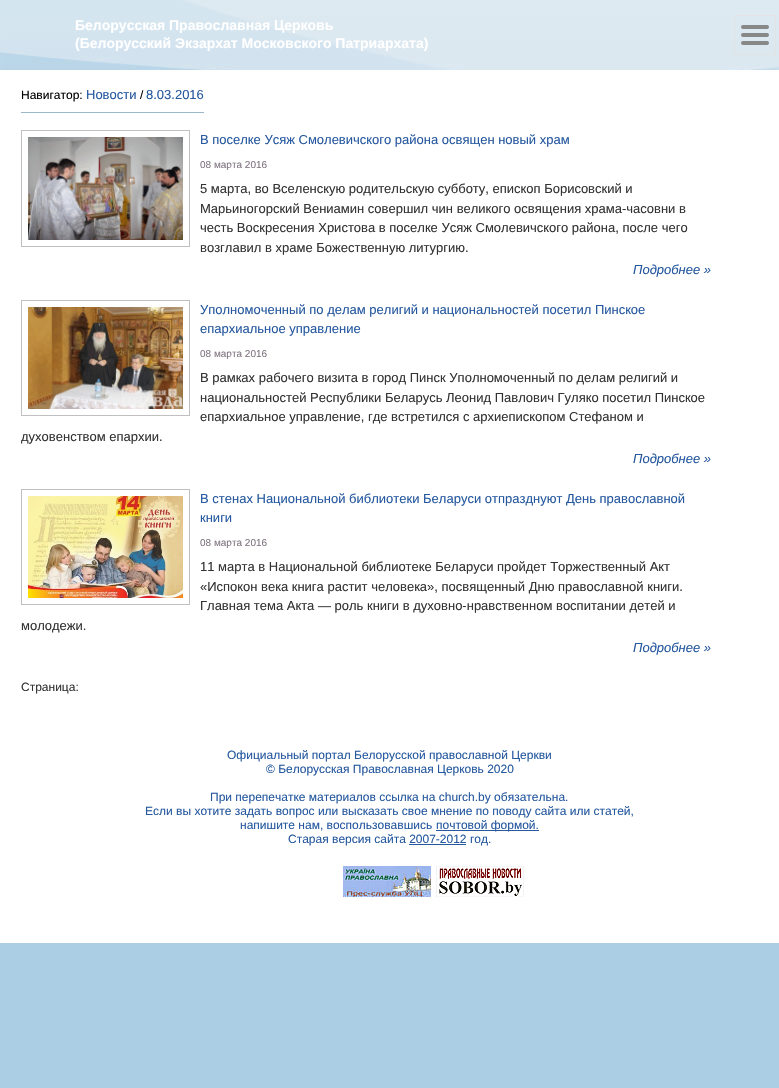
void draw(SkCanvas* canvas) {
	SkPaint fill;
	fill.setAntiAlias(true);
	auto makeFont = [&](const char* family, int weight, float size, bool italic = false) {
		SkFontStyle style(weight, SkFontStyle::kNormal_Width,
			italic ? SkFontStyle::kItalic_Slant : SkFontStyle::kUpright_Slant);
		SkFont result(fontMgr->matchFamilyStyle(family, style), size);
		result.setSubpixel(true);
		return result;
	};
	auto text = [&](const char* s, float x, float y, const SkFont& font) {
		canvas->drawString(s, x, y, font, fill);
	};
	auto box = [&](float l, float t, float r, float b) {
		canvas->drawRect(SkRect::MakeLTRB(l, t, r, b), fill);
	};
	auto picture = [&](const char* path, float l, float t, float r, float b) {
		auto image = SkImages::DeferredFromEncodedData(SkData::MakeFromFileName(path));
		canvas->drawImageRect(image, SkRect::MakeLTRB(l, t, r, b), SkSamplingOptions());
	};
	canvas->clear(0xFFABCEE4);
	picture("image0.png", 0, 0, 779, 70);
	fill.setStyle(SkPaint::kStroke_Style);
	fill.setStrokeWidth(1);
	fill.setColor(0xFFE3E3E3);
	canvas->drawRect(SkRect::MakeLTRB(734.5f, 15.5f, 775.5f, 54.5f), fill);
	picture("image1.png", 741, 25, 769, 45);
	fill.setStyle(SkPaint::kFill_Style);
	fill.setColor(0xFFFFFFFF);
	box(0, 70, 779, 943);
	fill.setColor(0xFF9BB7CB);
	box(21, 112, 204, 113);
	fill.setStyle(SkPaint::kStroke_Style);
	fill.setColor(0xFFC0C0C0);
	canvas->drawRect(SkRect::MakeLTRB(21.5f, 130.5f, 189.5f, 246.5f), fill);
	picture("image2.png", 28, 137, 183, 240);
	canvas->drawRect(SkRect::MakeLTRB(21.5f, 300.5f, 189.5f, 415.5f), fill);
	picture("image3.png", 28, 307, 183, 409);
	canvas->drawRect(SkRect::MakeLTRB(21.5f, 489.5f, 189.5f, 604.5f), fill);
	picture("image4.png", 28, 496, 183, 598);
	fill.setStyle(SkPaint::kFill_Style);
	fill.setColor(0xFF25589F);
	box(436, 830, 539, 831);
	box(409, 844, 466, 845);
	picture("image5.png", 343, 866, 431, 897);
	picture("image6.png", 436, 866, 524, 897);
	auto font1 = makeFont("Liberation Sans", 700, 14);
	fill.setColor(0xFFFFFFFF);
	text("Белорусская Православная Церковь", 75, 30, font1);
	text("(Белорусский Экзархат Московского Патриархата)", 75, 48, font1);
	auto font2 = makeFont("Liberation Sans", 400, 12);
	fill.setColor(0xFF000000);
	text("Навигатор:", 21, 99, font2);
	auto font3 = makeFont("Liberation Sans", 400, 13);
	fill.setColor(0xFF25589F);
	text("Новости", 86, 99, font3);
	fill.setColor(0xFF000000);
	text("/", 140, 99, font2);
	fill.setColor(0xFF25589F);
	text("8.03.2016", 146, 99, font3);
	text("В поселке Усяж Смолевичского района освящен новый храм", 200, 144, font3);
	auto font4 = makeFont("Liberation Sans", 400, 10);
	fill.setColor(0xFF807580);
	text("08 марта 2016", 200, 168, font4);
	fill.setColor(0xFF333333);
	text("5 марта, во Вселенскую родительскую субботу, епископ Борисовский и", 200, 193, font3);
	text("Марьиногорский Вениамин совершил чин великого освящения храма-часовни в", 200, 213, font3);
	text("честь Воскресения Христова в поселке Усяж Смолевичского района, после чего", 200, 232, font3);
	text("возглавил в храме Божественную литургию.", 200, 252, font3);
	auto font5 = makeFont("Liberation Sans", 400, 13, true);
	fill.setColor(0xFF25589F);
	text("Подробнее »", 633, 274, font5);
	text("Уполномоченный по делам религий и национальностей посетил Пинское", 200, 314, font3);
	text("епархиальное управление", 200, 333, font3);
	fill.setColor(0xFF807580);
	text("08 марта 2016", 200, 357, font4);
	fill.setColor(0xFF333333);
	text("В рамках рабочего визита в город Пинск Уполномоченный по делам религий и", 200, 382, font3);
	text("национальностей Республики Беларусь Леонид Павлович Гуляко посетил Пинское", 200, 402, font3);
	text("епархиальное управление, где встретился с архиепископом Стефаном и", 200, 421, font3);
	text("духовенством епархии.", 21, 441, font3);
	fill.setColor(0xFF25589F);
	text("Подробнее »", 633, 463, font5);
	text("В стенах Национальной библиотеки Беларуси отпразднуют День православной", 200, 503, font3);
	text("книги", 200, 522, font3);
	fill.setColor(0xFF807580);
	text("08 марта 2016", 200, 546, font4);
	fill.setColor(0xFF333333);
	text("11 марта в Национальной библиотеке Беларуси пройдет Торжественный Акт", 200, 571, font3);
	text("«Испокон века книга растит человека», посвященный Дню православной книги.", 200, 591, font3);
	text("Главная тема Акта — роль книги в духовно-нравственном воспитании детей и", 200, 610, font3);
	text("молодежи.", 21, 630, font3);
	fill.setColor(0xFF25589F);
	text("Подробнее »", 633, 652, font5);
	fill.setColor(0xFF333333);
	text("Страница:", 21, 691, font2);
	fill.setColor(0xFF25589F);
	text("Официальный портал Белорусской православной Церкви", 227, 759, font2);
	text("© Белорусская Православная Церковь 2020", 266, 773, font2);
	text("При перепечатке материалов ссылка на church.by обязательна.", 210, 801, font2);
	text("Если вы хотите задать вопрос или высказать свое мнение по поводу сайта или статей,", 145, 815, font2);
	text("напишите нам, воспользовавшись", 240, 829, font2);
	text("почтовой формой.", 436, 829, font2);
	text("Старая версия сайта 2007-2012 год.", 288, 843, font2);
}
